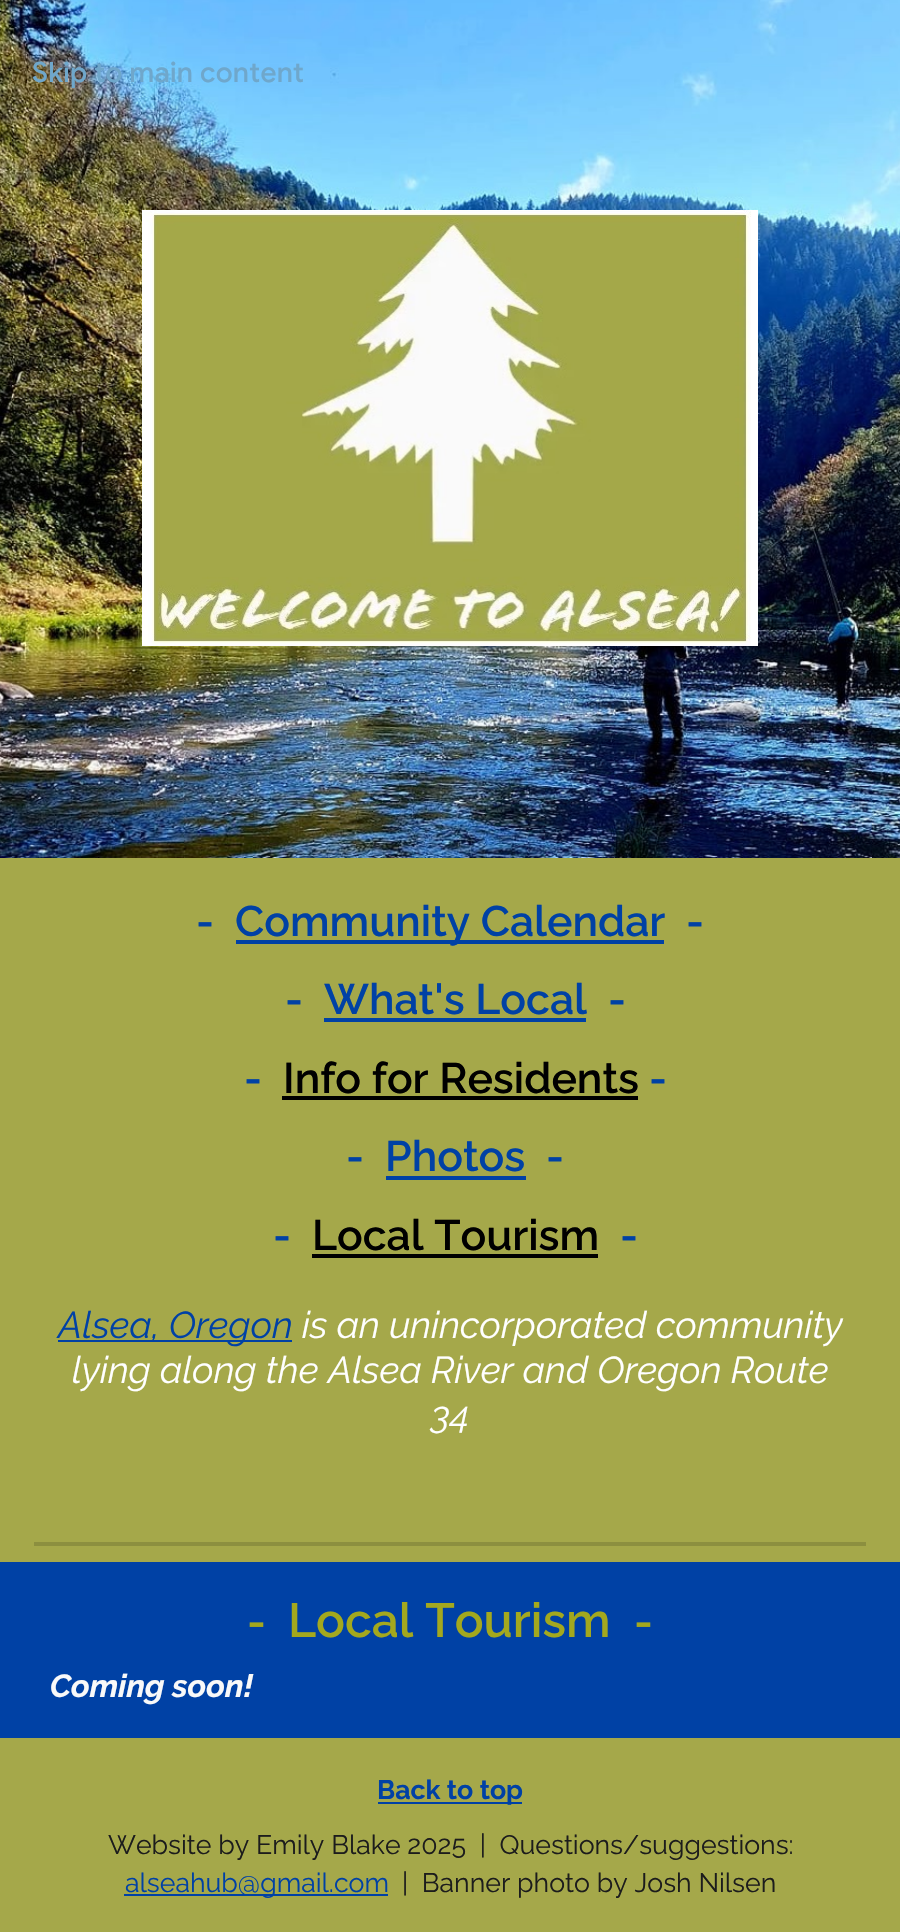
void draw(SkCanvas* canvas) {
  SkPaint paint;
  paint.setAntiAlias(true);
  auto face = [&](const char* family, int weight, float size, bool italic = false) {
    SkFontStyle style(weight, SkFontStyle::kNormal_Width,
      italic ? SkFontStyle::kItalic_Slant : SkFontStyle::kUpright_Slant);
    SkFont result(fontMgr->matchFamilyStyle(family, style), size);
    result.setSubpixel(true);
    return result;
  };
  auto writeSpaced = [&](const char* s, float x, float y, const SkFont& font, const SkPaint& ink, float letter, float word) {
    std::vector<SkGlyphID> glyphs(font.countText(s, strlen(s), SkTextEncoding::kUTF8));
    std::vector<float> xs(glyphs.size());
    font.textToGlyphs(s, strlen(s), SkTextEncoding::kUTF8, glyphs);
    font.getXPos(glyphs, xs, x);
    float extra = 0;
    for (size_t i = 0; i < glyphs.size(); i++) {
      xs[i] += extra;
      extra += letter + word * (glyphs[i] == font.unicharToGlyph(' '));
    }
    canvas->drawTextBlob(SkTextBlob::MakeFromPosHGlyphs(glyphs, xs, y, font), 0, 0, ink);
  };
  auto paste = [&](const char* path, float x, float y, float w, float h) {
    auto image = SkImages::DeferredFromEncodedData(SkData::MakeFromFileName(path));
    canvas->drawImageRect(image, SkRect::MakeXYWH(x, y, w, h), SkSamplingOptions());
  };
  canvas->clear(0xffffffff);
  paste("img/1.png", 0, 0, 900, 858);
  paste("img/2.png", 142, 210, 616, 436);
  {
    const struct { float x, y, w, h; SkColor color; } items[] = {
      {0, 858, 900, 704, 0xffa5a84a},
      {236, 940, 428, 4, 0xff0041a5},
      {324, 1018, 262, 4, 0xff0041a5},
      {282, 1096, 356, 4, 0xff000000},
      {386, 1176, 140, 4, 0xff0041a5},
      {312, 1254, 286, 4, 0xff000000},
      {58, 1340, 234, 2, 0xff0041a5},
      {34, 1542, 832, 4, 0xff8c8f3f},
      {0, 1562, 900, 176, 0xff0041a5},
      {0, 1738, 900, 194, 0xffa5a84a},
      {378, 1802, 144, 2, 0xff0041a5},
      {124, 1894, 264, 2, 0xff0041a5},
    };
    for (auto [x, y, w, h, color] : items) {
      paint.setColor(color);
      canvas->drawRect(SkRect::MakeXYWH(x, y, w, h), paint);
    }
  }
  auto f0 = face("Google Sans", 500, 28);
  paint.setColor(0xff6fa7cb);
  writeSpaced("Skip to main content", 32, 82, f0, paint, 0.25f, 0);
  auto f1 = face("Raleway", 600, 42.75f);
  paint.setColor(0xff0041a5);
  {
    const struct { const char* s; float x, y; } items[] = {
      {"-", 196, 936},
      {"Community Calendar", 235, 936},
      {"-", 686, 936},
      {"-", 285, 1014},
      {"What's Local", 324, 1014},
      {"-", 608, 1014},
      {"-", 244, 1093},
    };
    for (auto [s, x, y] : items) {
      canvas->drawString(s, x, y, f1, paint);
    }
  }
  paint.setColor(0xff000000);
  canvas->drawString("Info for Residents", 283, 1093, f1, paint);
  paint.setColor(0xff0041a5);
  {
    const struct { const char* s; float x, y; } items[] = {
      {"-", 649, 1093},
      {"-", 346, 1171},
      {"Photos", 385, 1171},
      {"-", 546, 1171},
      {"-", 273, 1250},
    };
    for (auto [s, x, y] : items) {
      canvas->drawString(s, x, y, f1, paint);
    }
  }
  paint.setColor(0xff000000);
  canvas->drawString("Local Tourism", 312, 1250, f1, paint);
  paint.setColor(0xff0041a5);
  canvas->drawString("-", 620, 1250, f1, paint);
  auto f2 = face("Raleway", 400, 37.3f, true);
  canvas->drawString("Alsea, Oregon", 58, 1338, f2, paint);
  paint.setColor(0xffffffff);
  {
    const struct { const char* s; float x, y; } items[] = {
      {"is an unincorporated community", 302, 1338},
      {"lying along the Alsea River and Oregon Route", 72, 1383},
      {"34", 431, 1428},
    };
    for (auto [s, x, y] : items) {
      canvas->drawString(s, x, y, f2, paint);
    }
  }
  auto f3 = face("Raleway", 600, 45);
  paint.setColor(0xffa3a81e);
  canvas->drawString("-", 247, 1637, f3, paint);
  auto f4 = face("Raleway", 600, 48);
  canvas->drawString("Local Tourism", 288, 1637, f4, paint);
  canvas->drawString("-", 634, 1637, f3, paint);
  auto f5 = face("Raleway", 700, 32, true);
  paint.setColor(0xfff9f9f9);
  canvas->drawString("Coming soon!", 50, 1697, f5, paint);
  auto f6 = face("Raleway", 700, 26.7f);
  paint.setColor(0xff0041a5);
  canvas->drawString("Back to top", 377, 1799, f6, paint);
  auto f7 = face("Raleway", 400, 26.7f);
  paint.setColor(0xff1c1c1c);
  canvas->drawString("Website by Emily Blake 2025  |  Questions/suggestions:", 108, 1854, f7, paint);
  paint.setColor(0xff0041a5);
  canvas->drawString("alseahub@gmail.com", 125, 1892, f7, paint);
  paint.setColor(0xff1c1c1c);
  canvas->drawString("|  Banner photo by Josh Nilsen", 402, 1892, f7, paint);
}
